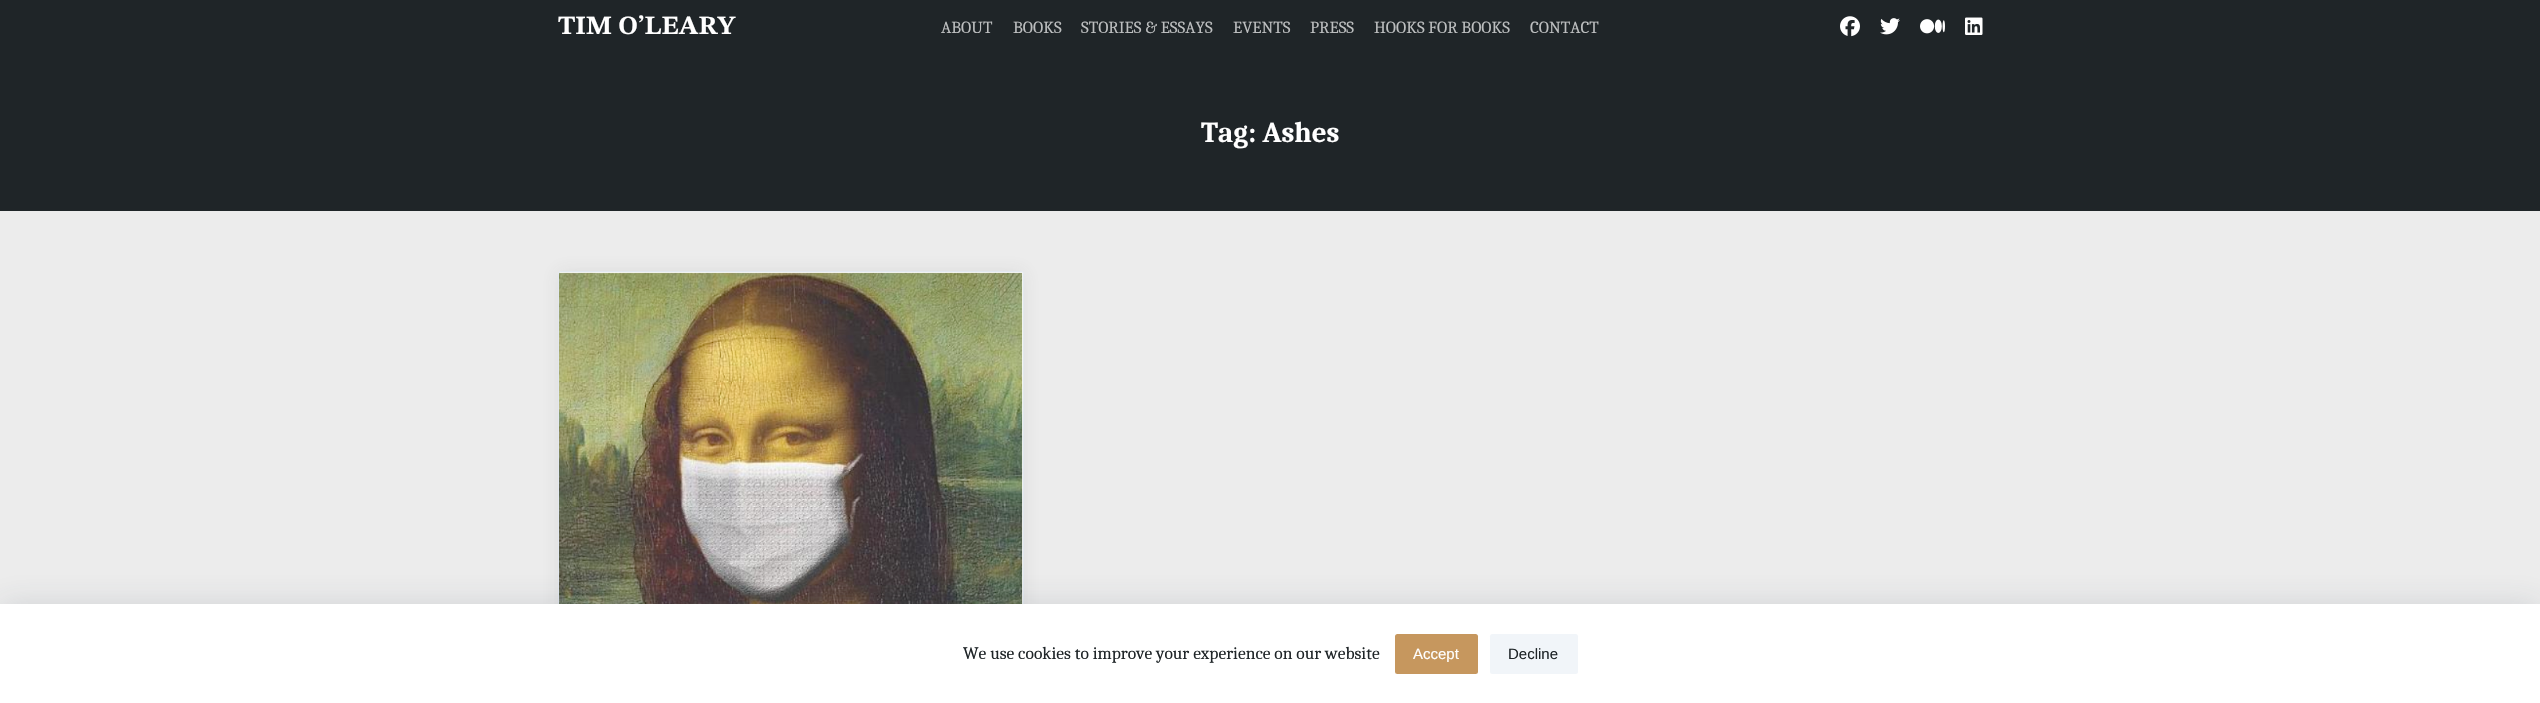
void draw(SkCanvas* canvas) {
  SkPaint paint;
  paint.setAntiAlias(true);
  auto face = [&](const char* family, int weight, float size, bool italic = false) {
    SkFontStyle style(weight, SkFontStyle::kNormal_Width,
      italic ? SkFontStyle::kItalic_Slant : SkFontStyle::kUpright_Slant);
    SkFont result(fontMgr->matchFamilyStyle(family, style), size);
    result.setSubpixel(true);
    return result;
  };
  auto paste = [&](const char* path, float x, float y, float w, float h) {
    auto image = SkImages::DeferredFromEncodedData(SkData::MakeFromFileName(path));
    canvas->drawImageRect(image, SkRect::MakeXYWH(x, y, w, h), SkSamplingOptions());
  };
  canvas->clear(0xffececec);
  paint.setColor(0xff1f2528);
  canvas->drawRect(SkRect::MakeXYWH(0, 0, 2540, 211), paint);
  paste("img/1.png", 1840, 16, 20, 21);
  paste("img/2.png", 1880, 18, 20, 17);
  paste("img/3.png", 1920, 19, 25, 15);
  paste("img/4.png", 1965, 17, 18, 18);
  paint.setColor(0x1a464749);
  paint.setMaskFilter(SkMaskFilter::MakeBlur(kNormal_SkBlurStyle, 9));
  canvas->drawRoundRect(SkRect::MakeXYWH(558, 271, 466, 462), 2.5f, 2.5f, paint);
  paint.setMaskFilter(nullptr);
  paint.setColor(0xffffffff);
  canvas->drawRoundRect(SkRect::MakeXYWH(558.5f, 271.5f, 465, 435), 2, 2, paint);
  paint.setStroke(true);
  paint.setStrokeWidth(1);
  paint.setColor(0xffe2e8f0);
  canvas->drawRoundRect(SkRect::MakeXYWH(558.5f, 271.5f, 465, 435), 2, 2, paint);
  paste("img/5.png", 559, 272, 464, 332);
  paint.setStroke(false);
  paint.setColor(0x262c3e50);
  paint.setMaskFilter(SkMaskFilter::MakeBlur(kNormal_SkBlurStyle, 15));
  canvas->drawRect(SkRect::MakeXYWH(0, 604, 2540, 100), paint);
  paint.setMaskFilter(nullptr);
  paint.setColor(0xffffffff);
  canvas->drawRect(SkRect::MakeXYWH(0, 604, 2540, 99), paint);
  paint.setColor(0xffc6975e);
  canvas->drawRoundRect(SkRect::MakeXYWH(1395, 634, 83, 40), 2.5f, 2.5f, paint);
  paint.setColor(0xfff1f5f9);
  canvas->drawRoundRect(SkRect::MakeXYWH(1490, 634, 88, 40), 2.5f, 2.5f, paint);
  auto f0 = face("STIX Two Text", 700, 26.25f);
  paint.setColor(0xffffffff);
  canvas->drawString("TIM O’LEARY", 558, 34, f0, paint);
  auto f1 = face("Caladea", 400, 17);
  paint.setColor(0xffbcbebf);
  {
    const struct { const char* s; float x, y; } items[] = {
      {"ABOUT", 941, 33},
      {"BOOKS", 1013, 33},
      {"STORIES & ESSAYS", 1081, 33},
      {"EVENTS", 1233, 33},
      {"PRESS", 1310, 33},
      {"HOOKS FOR BOOKS", 1374, 33},
      {"CONTACT", 1530, 33},
    };
    for (auto [s, x, y] : items) {
      canvas->drawString(s, x, y, f1, paint);
    }
  }
  auto f2 = face("Caladea", 700, 29);
  paint.setColor(0xffffffff);
  canvas->drawString("Tag: Ashes", 1201, 142, f2, paint);
  auto f3 = face("Caladea", 400, 17.5f);
  paint.setColor(0xff1f2528);
  canvas->drawString("We use cookies to improve your experience on our website", 963, 659, f3, paint);
  auto f4 = face("Liberation Sans", 400, 15);
  paint.setColor(0xffffffff);
  canvas->drawString("Accept", 1413, 659, f4, paint);
  paint.setColor(0xff1f2528);
  canvas->drawString("Decline", 1508, 659, f4, paint);
}
